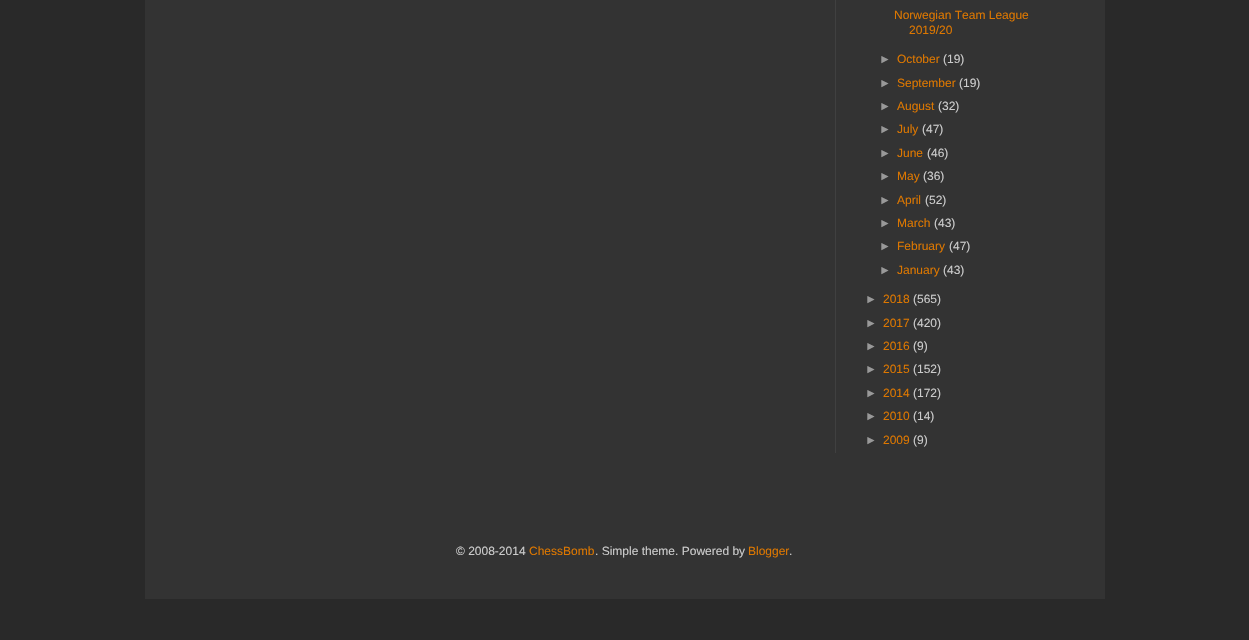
void draw(SkCanvas* canvas) {
  SkPaint paint;
  paint.setAntiAlias(true);
  auto face = [&](const char* family, int weight, float size, bool italic = false) {
    SkFontStyle style(weight, SkFontStyle::kNormal_Width,
      italic ? SkFontStyle::kItalic_Slant : SkFontStyle::kUpright_Slant);
    SkFont result(fontMgr->matchFamilyStyle(family, style), size);
    result.setSubpixel(true);
    return result;
  };
  canvas->clear(0xff292929);
  paint.setColor(0xff333333);
  canvas->drawRect(SkRect::MakeXYWH(145, 0, 960, 599), paint);
  paint.setColor(0xff404040);
  canvas->drawRect(SkRect::MakeXYWH(835, 0, 1, 453), paint);
  auto f0 = face("Liberation Sans", 400, 12);
  paint.setColor(0xffdd7700);
  canvas->drawString("Norwegian Team League", 894, 19, f0, paint);
  canvas->drawString("2019/20", 909, 34, f0, paint);
  paint.setColor(0xff999999);
  canvas->drawString("►", 879, 63, f0, paint);
  paint.setColor(0xffdd7700);
  canvas->drawString("October", 897, 63, f0, paint);
  paint.setColor(0xffcccccc);
  canvas->drawString("(19)", 943, 63, f0, paint);
  paint.setColor(0xff999999);
  canvas->drawString("►", 879, 87, f0, paint);
  paint.setColor(0xffdd7700);
  canvas->drawString("September", 897, 87, f0, paint);
  paint.setColor(0xffcccccc);
  canvas->drawString("(19)", 959, 87, f0, paint);
  paint.setColor(0xff999999);
  canvas->drawString("►", 879, 110, f0, paint);
  paint.setColor(0xffdd7700);
  canvas->drawString("August", 897, 110, f0, paint);
  paint.setColor(0xffcccccc);
  canvas->drawString("(32)", 938, 110, f0, paint);
  paint.setColor(0xff999999);
  canvas->drawString("►", 879, 133, f0, paint);
  paint.setColor(0xffdd7700);
  canvas->drawString("July", 897, 133, f0, paint);
  paint.setColor(0xffcccccc);
  canvas->drawString("(47)", 922, 133, f0, paint);
  paint.setColor(0xff999999);
  canvas->drawString("►", 879, 157, f0, paint);
  paint.setColor(0xffdd7700);
  canvas->drawString("June", 897, 157, f0, paint);
  paint.setColor(0xffcccccc);
  canvas->drawString("(46)", 927, 157, f0, paint);
  paint.setColor(0xff999999);
  canvas->drawString("►", 879, 180, f0, paint);
  paint.setColor(0xffdd7700);
  canvas->drawString("May", 897, 180, f0, paint);
  paint.setColor(0xffcccccc);
  canvas->drawString("(36)", 923, 180, f0, paint);
  paint.setColor(0xff999999);
  canvas->drawString("►", 879, 204, f0, paint);
  paint.setColor(0xffdd7700);
  canvas->drawString("April", 897, 204, f0, paint);
  paint.setColor(0xffcccccc);
  canvas->drawString("(52)", 925, 204, f0, paint);
  paint.setColor(0xff999999);
  canvas->drawString("►", 879, 227, f0, paint);
  paint.setColor(0xffdd7700);
  canvas->drawString("March", 897, 227, f0, paint);
  paint.setColor(0xffcccccc);
  canvas->drawString("(43)", 934, 227, f0, paint);
  paint.setColor(0xff999999);
  canvas->drawString("►", 879, 250, f0, paint);
  paint.setColor(0xffdd7700);
  canvas->drawString("February", 897, 250, f0, paint);
  paint.setColor(0xffcccccc);
  canvas->drawString("(47)", 949, 250, f0, paint);
  paint.setColor(0xff999999);
  canvas->drawString("►", 879, 274, f0, paint);
  paint.setColor(0xffdd7700);
  canvas->drawString("January", 897, 274, f0, paint);
  paint.setColor(0xffcccccc);
  canvas->drawString("(43)", 943, 274, f0, paint);
  paint.setColor(0xff999999);
  canvas->drawString("►", 865, 303, f0, paint);
  paint.setColor(0xffdd7700);
  canvas->drawString("2018", 883, 303, f0, paint);
  paint.setColor(0xffcccccc);
  canvas->drawString("(565)", 913, 303, f0, paint);
  paint.setColor(0xff999999);
  canvas->drawString("►", 865, 327, f0, paint);
  paint.setColor(0xffdd7700);
  canvas->drawString("2017", 883, 327, f0, paint);
  paint.setColor(0xffcccccc);
  canvas->drawString("(420)", 913, 327, f0, paint);
  paint.setColor(0xff999999);
  canvas->drawString("►", 865, 350, f0, paint);
  paint.setColor(0xffdd7700);
  canvas->drawString("2016", 883, 350, f0, paint);
  paint.setColor(0xffcccccc);
  canvas->drawString("(9)", 913, 350, f0, paint);
  paint.setColor(0xff999999);
  canvas->drawString("►", 865, 373, f0, paint);
  paint.setColor(0xffdd7700);
  canvas->drawString("2015", 883, 373, f0, paint);
  paint.setColor(0xffcccccc);
  canvas->drawString("(152)", 913, 373, f0, paint);
  paint.setColor(0xff999999);
  canvas->drawString("►", 865, 397, f0, paint);
  paint.setColor(0xffdd7700);
  canvas->drawString("2014", 883, 397, f0, paint);
  paint.setColor(0xffcccccc);
  canvas->drawString("(172)", 913, 397, f0, paint);
  paint.setColor(0xff999999);
  canvas->drawString("►", 865, 420, f0, paint);
  paint.setColor(0xffdd7700);
  canvas->drawString("2010", 883, 420, f0, paint);
  paint.setColor(0xffcccccc);
  canvas->drawString("(14)", 913, 420, f0, paint);
  paint.setColor(0xff999999);
  canvas->drawString("►", 865, 444, f0, paint);
  paint.setColor(0xffdd7700);
  canvas->drawString("2009", 883, 444, f0, paint);
  paint.setColor(0xffcccccc);
  canvas->drawString("(9)", 913, 444, f0, paint);
  canvas->drawString("© 2008-2014", 456, 555, f0, paint);
  paint.setColor(0xffdd7700);
  canvas->drawString("ChessBomb", 529, 555, f0, paint);
  paint.setColor(0xffcccccc);
  canvas->drawString(". Simple theme. Powered by", 595, 555, f0, paint);
  paint.setColor(0xffdd7700);
  canvas->drawString("Blogger", 748, 555, f0, paint);
  paint.setColor(0xffcccccc);
  canvas->drawString(".", 789, 555, f0, paint);
}
